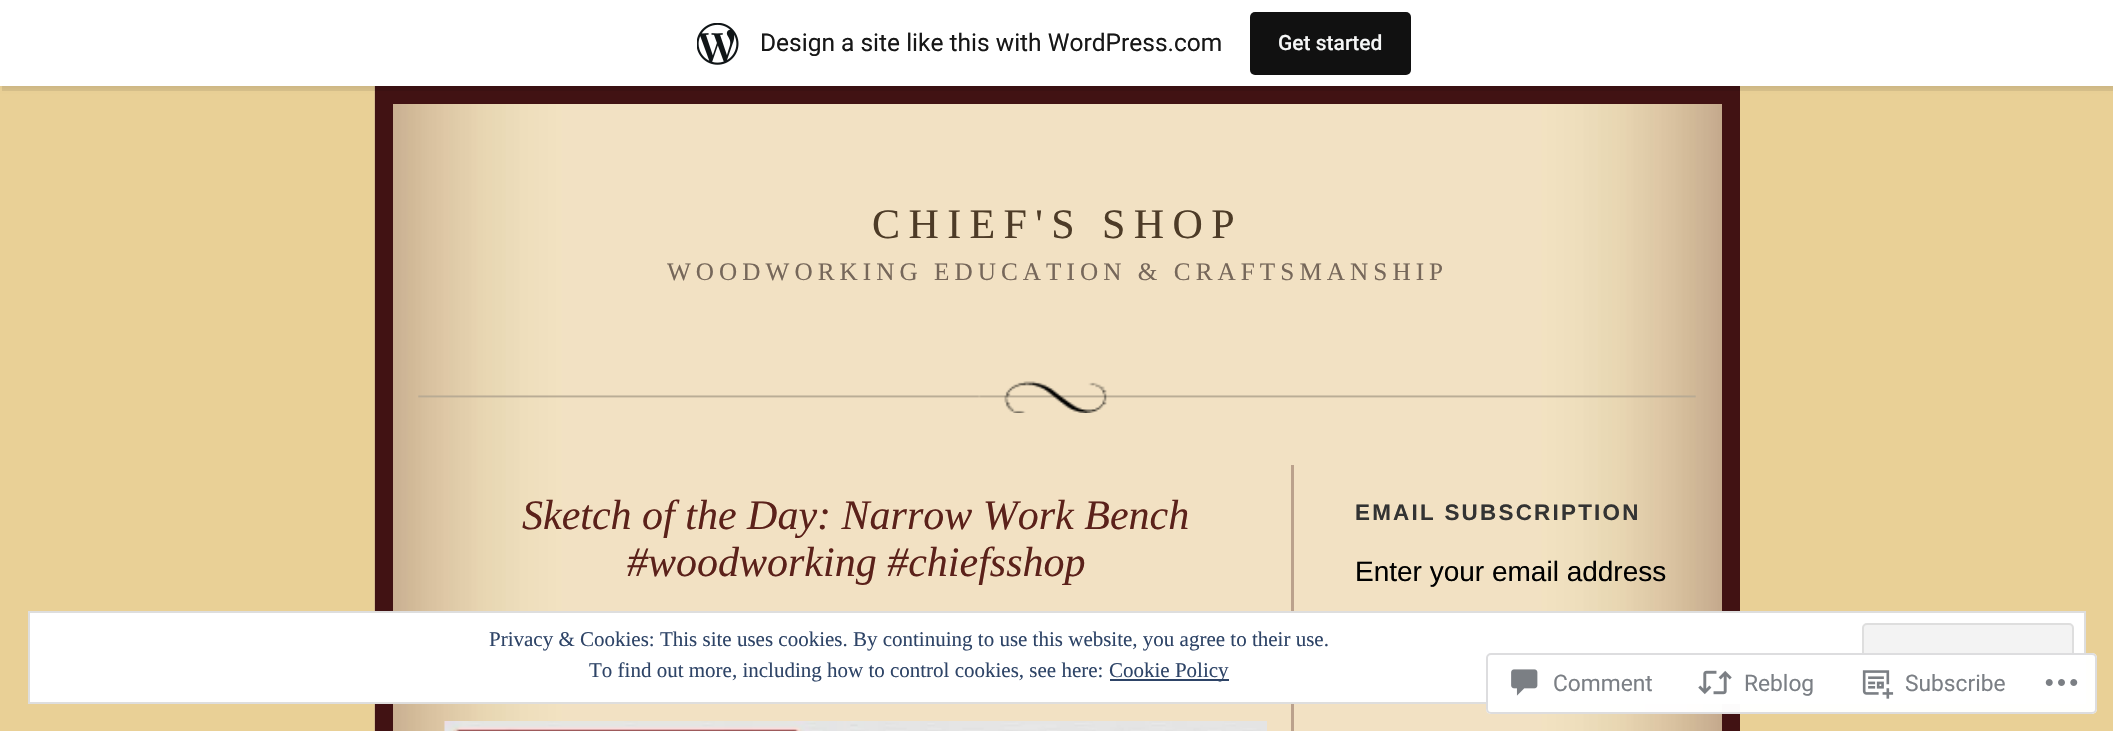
void draw(SkCanvas* canvas) {
  SkPaint paint;
  paint.setAntiAlias(true);
  auto face = [&](const char* family, int weight, float size, bool italic = false) {
    SkFontStyle style(weight, SkFontStyle::kNormal_Width,
      italic ? SkFontStyle::kItalic_Slant : SkFontStyle::kUpright_Slant);
    SkFont result(fontMgr->matchFamilyStyle(family, style), size);
    result.setSubpixel(true);
    return result;
  };
  auto writeSpaced = [&](const char* s, float x, float y, const SkFont& font, const SkPaint& ink, float letter, float word) {
    std::vector<SkGlyphID> glyphs(font.countText(s, strlen(s), SkTextEncoding::kUTF8));
    std::vector<float> xs(glyphs.size());
    font.textToGlyphs(s, strlen(s), SkTextEncoding::kUTF8, glyphs);
    font.getXPos(glyphs, xs, x);
    float extra = 0;
    for (size_t i = 0; i < glyphs.size(); i++) {
      xs[i] += extra;
      extra += letter + word * (glyphs[i] == font.unicharToGlyph(' '));
    }
    canvas->drawTextBlob(SkTextBlob::MakeFromPosHGlyphs(glyphs, xs, y, font), 0, 0, ink);
  };
  auto paste = [&](const char* path, float x, float y, float w, float h) {
    auto image = SkImages::DeferredFromEncodedData(SkData::MakeFromFileName(path));
    canvas->drawImageRect(image, SkRect::MakeXYWH(x, y, w, h), SkSamplingOptions());
  };
  auto shape = [&](const char* data, bool evenOdd = false) {
    SkPath result = *SkParsePath::FromSVGString(data);
    if (evenOdd) result.setFillType(SkPathFillType::kEvenOdd);
    return result;
  };
  canvas->clear(0xffe9d096);
  paste("img/2.png", 374, 86, 1348, 645);
  paint.setStroke(true);
  paint.setStrokeWidth(18);
  paint.setColor(0xff411213);
  canvas->drawRect(SkRect::MakeXYWH(384, 95, 1347, 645), paint);
  paint.setStroke(false);
  paint.setColor(0x0d000000);
  paint.setMaskFilter(SkMaskFilter::MakeBlur(kNormal_SkBlurStyle, 2));
  canvas->drawRect(SkRect::MakeXYWH(0, 2, 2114, 86), paint);
  paint.setMaskFilter(nullptr);
  paint.setColor(0x14000000);
  canvas->drawPath(shape("M2 86V91H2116V5H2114V86Z"), paint);
  paint.setColor(0xffffffff);
  canvas->drawRect(SkRect::MakeXYWH(0, 0, 2113, 86), paint);
  paste("img/1.png", 697, 23, 42, 42);
  paint.setColor(0xff111111);
  canvas->drawRoundRect(SkRect::MakeXYWH(1250, 12, 161, 63), 5, 5, paint);
  paste("img/3.png", 418, 381, 1278, 32);
  paint.setColor(0xffbba18c);
  canvas->drawRect(SkRect::MakeXYWH(1291, 465, 3, 266), paint);
  paste("img/4.png", 444, 721, 823, 10);
  paint.setColor(0xffffffff);
  canvas->drawRect(SkRect::MakeXYWH(29, 612, 2056, 91), paint);
  paint.setStroke(true);
  paint.setStrokeWidth(2);
  paint.setColor(0xffdedede);
  canvas->drawRect(SkRect::MakeXYWH(29, 612, 2056, 91), paint);
  paint.setStroke(false);
  paint.setColor(0xfff3f3f3);
  canvas->drawRoundRect(SkRect::MakeXYWH(1863, 624, 210, 66), 4, 4, paint);
  paint.setStroke(true);
  paint.setColor(0xffdedede);
  canvas->drawRoundRect(SkRect::MakeXYWH(1863, 624, 210, 66), 4, 4, paint);
  paint.setStroke(false);
  paint.setColor(0xff2e4467);
  canvas->drawRect(SkRect::MakeXYWH(1110, 679, 119, 2), paint);
  paint.setColor(0xfaffffff);
  canvas->drawRoundRect(SkRect::MakeXYWH(1486, 653, 611, 61), 5, 5, paint);
  paint.setStroke(true);
  paint.setColor(0xfadcdcde);
  canvas->drawRoundRect(SkRect::MakeXYWH(1487, 654, 609, 59), 4, 4, paint);
  paste("img/5.png", 1511, 669, 27, 27);
  paste("img/6.png", 1698, 670, 34, 25);
  paste("img/7.png", 1862, 670, 32, 29);
  paste("img/8.png", 2045, 679, 33, 7);
  auto f0 = face("Roboto", 400, 24.5f);
  paint.setStroke(false);
  paint.setColor(0xff171717);
  canvas->drawString("Design a site like this with WordPress.com", 760, 51, f0, paint);
  auto f1 = face("Roboto", 500, 21);
  paint.setColor(0xfff6f7f7);
  canvas->drawString("Get started", 1278, 50, f1, paint);
  auto f2 = face("Liberation Serif", 400, 42);
  paint.setColor(0xff4d3b27);
  writeSpaced("CHIEF'S SHOP", 872, 238, f2, paint, 8.4f, 0);
  auto f3 = face("Liberation Serif", 400, 25.2f);
  paint.setColor(0xff76675a);
  writeSpaced("WOODWORKING EDUCATION & CRAFTSMANSHIP", 667, 280, f3, paint, 5.05f, 0);
  auto f4 = face("Liberation Serif", 400, 42, true);
  paint.setColor(0xff5b211a);
  canvas->drawString("Sketch of the Day: Narrow Work Bench", 522, 529, f4, paint);
  canvas->drawString("#woodworking #chiefsshop", 627, 576, f4, paint);
  auto f5 = face("Liberation Sans", 700, 22.4f);
  paint.setColor(0xff333333);
  writeSpaced("EMAIL SUBSCRIPTION", 1355, 520, f5, paint, 2.25f, 0);
  auto f6 = face("Liberation Sans", 400, 28);
  paint.setColor(0xff000000);
  canvas->drawString("Enter your email address", 1355, 581, f6, paint);
  auto f7 = face("Liberation Serif", 400, 21);
  paint.setColor(0xff2e4467);
  {
    const struct { const char* s; float x, y; } items[] = {
      {"Privacy & Cookies: This site uses cookies. By continuing to use this website, you agree to their use.", 489, 646},
      {"To find out more, including how to control cookies, see here:", 589, 677},
      {"Cookie Policy", 1109, 677},
    };
    for (auto [s, x, y] : items) {
      canvas->drawString(s, x, y, f7, paint);
    }
  }
  auto f8 = face("Roboto", 400, 22.75f);
  paint.setColor(0xff7b7f85);
  {
    const struct { const char* s; float x, y; } items[] = {
      {"Comment", 1553, 691},
      {"Reblog", 1744, 691},
      {"Subscribe", 1905, 691},
    };
    for (auto [s, x, y] : items) {
      canvas->drawString(s, x, y, f8, paint);
    }
  }
}
